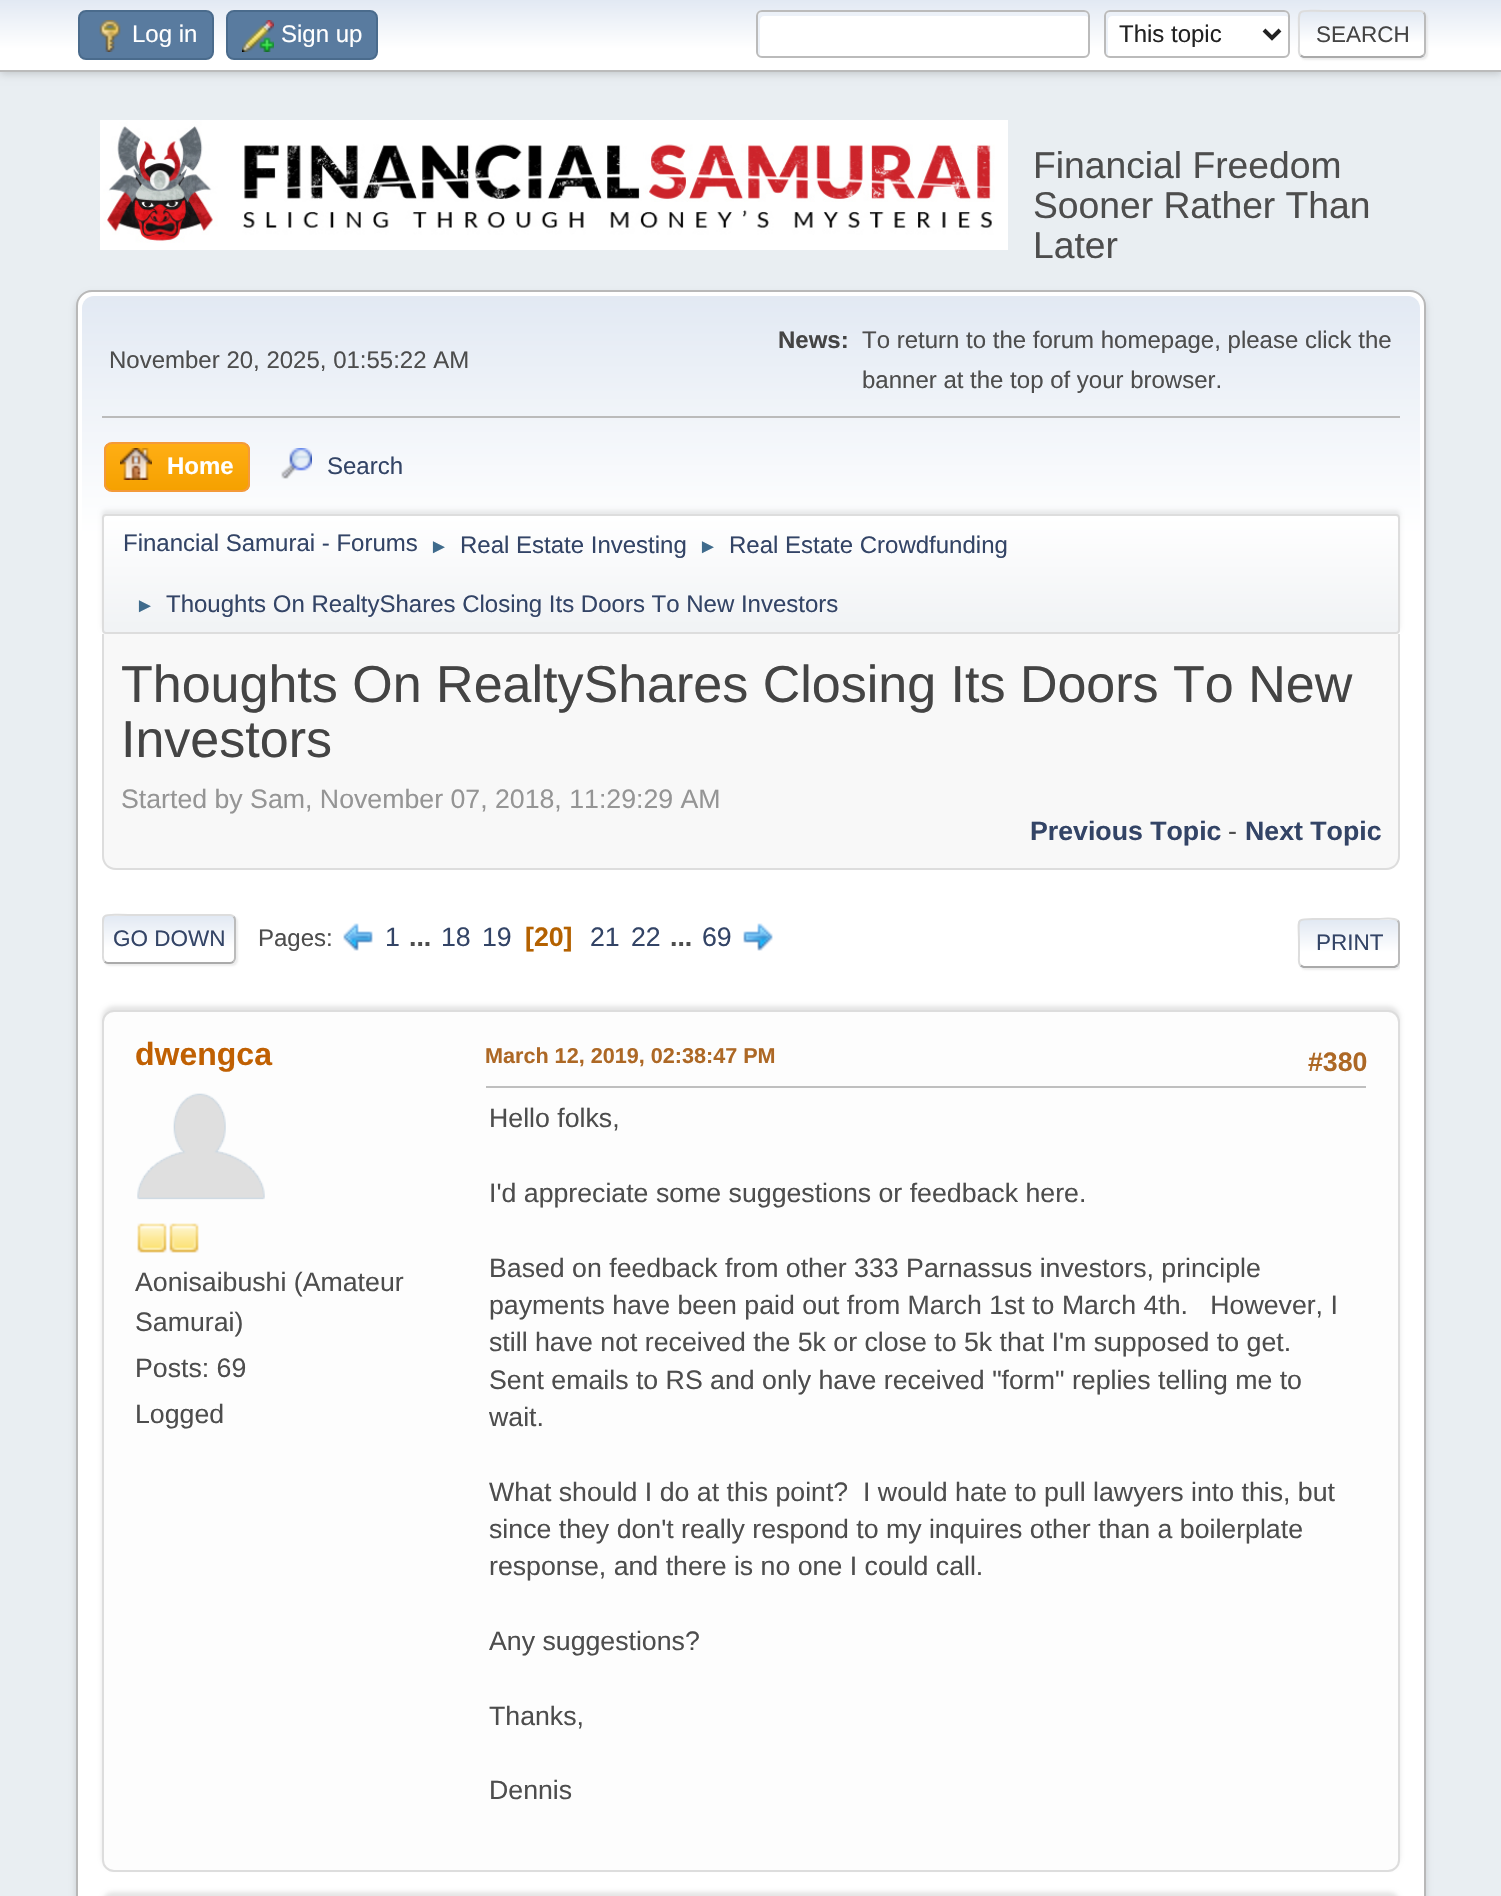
void draw(SkCanvas* canvas) {
  SkPaint paint;
  paint.setAntiAlias(true);
  auto face = [&](const char* family, int weight, float size, bool italic = false) {
    SkFontStyle style(weight, SkFontStyle::kNormal_Width,
      italic ? SkFontStyle::kItalic_Slant : SkFontStyle::kUpright_Slant);
    SkFont result(fontMgr->matchFamilyStyle(family, style), size);
    result.setSubpixel(true);
    return result;
  };
  auto paste = [&](const char* path, float x, float y, float w, float h) {
    auto image = SkImages::DeferredFromEncodedData(SkData::MakeFromFileName(path));
    canvas->drawImageRect(image, SkRect::MakeXYWH(x, y, w, h), SkSamplingOptions());
  };
  auto shape = [&](const char* data, bool evenOdd = false) {
    SkPath result = *SkParsePath::FromSVGString(data);
    if (evenOdd) result.setFillType(SkPathFillType::kEvenOdd);
    return result;
  };
  canvas->clear(0xffe9eef2);
  paint.setColor(0x29000000);
  paint.setMaskFilter(SkMaskFilter::MakeBlur(kNormal_SkBlurStyle, 4));
  canvas->drawRect(SkRect::MakeXYWH(0, 2, 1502, 72), paint);
  paint.setMaskFilter(nullptr);
  {
    const SkColor colors[] = {0xffe2e9f3, 0xffffffff};
    const float stops[] = {0, 0.7f};
    const SkPoint ends[] = {{751, 0}, {751, 70}};
    paint.setShader(SkGradientShader::MakeLinear(ends, colors, stops, 2, SkTileMode::kClamp));
    paint.setAlpha(255);
  }
  canvas->drawRect(SkRect::MakeXYWH(0, 0, 1501, 70), paint);
  paint.setShader(nullptr);
  paint.setColor(0xffbbbbbb);
  canvas->drawRect(SkRect::MakeXYWH(0, 70, 1501, 2), paint);
  paint.setColor(0xff597b9f);
  canvas->drawRoundRect(SkRect::MakeXYWH(79, 11, 134, 48), 7, 7, paint);
  paint.setStroke(true);
  paint.setStrokeWidth(2);
  paint.setColor(0xff4a6b8c);
  canvas->drawRoundRect(SkRect::MakeXYWH(79, 11, 134, 48), 7, 7, paint);
  paste("img/1.png", 99, 20, 22, 32);
  paint.setStroke(false);
  paint.setColor(0xff597b9f);
  canvas->drawRoundRect(SkRect::MakeXYWH(227, 11, 150, 48), 7, 7, paint);
  paint.setStroke(true);
  paint.setColor(0xff4a6b8c);
  canvas->drawRoundRect(SkRect::MakeXYWH(227, 11, 150, 48), 7, 7, paint);
  paste("img/2.png", 242, 20, 32, 32);
  paint.setStroke(false);
  paint.setColor(0xffffffff);
  canvas->drawRoundRect(SkRect::MakeXYWH(756, 10, 334, 48), 6, 6, paint);
  paint.setColor(0xffecf1f8);
  canvas->drawPath(shape("M764 16H1086L1088 17V16C1088 14 1086 12 1084 12H762C760 12 758 14 758 16V52C758 53 759 55 760 55V20C760 18 762 16 764 16Z"), paint);
  paint.setStroke(true);
  paint.setColor(0xffbbbbbb);
  canvas->drawRoundRect(SkRect::MakeXYWH(757, 11, 332, 46), 5, 5, paint);
  paint.setStroke(false);
  paint.setColor(0xffffffff);
  canvas->drawRoundRect(SkRect::MakeXYWH(1104, 10, 186, 48), 6, 6, paint);
  paint.setColor(0xffecf1f8);
  canvas->drawPath(shape("M1112 16H1286L1288 17V16C1288 14 1286 12 1284 12H1110C1108 12 1106 14 1106 16V52C1106 53 1107 55 1108 55V20C1108 18 1110 16 1112 16Z"), paint);
  paint.setStroke(true);
  paint.setColor(0xffbbbbbb);
  canvas->drawRoundRect(SkRect::MakeXYWH(1105, 11, 184, 46), 5, 5, paint);
  paint.setStrokeWidth(4);
  paint.setColor(0xff222222);
  canvas->drawPath(shape("M1264 30L1272 38L1280 30"), paint);
  paint.setStroke(false);
  paint.setColor(0x91dddddd);
  paint.setMaskFilter(SkMaskFilter::MakeBlur(kNormal_SkBlurStyle, 1));
  canvas->drawRoundRect(SkRect::MakeXYWH(1300, 12, 128, 48), 6, 6, paint);
  paint.setMaskFilter(nullptr);
  canvas->save();
  canvas->clipPath(shape("M1304 10H1420C1423.5 10 1426 12.5 1426 16V52C1426 55.5 1423.5 58 1420 58H1304C1300.5 58 1298 55.5 1298 52V16C1298 12.5 1300.5 10 1304 10Z"), true);
  {
    const SkColor colors[] = {0xffe2e9f3, 0xffffffff};
    const float stops[] = {0, 0.7f};
    const SkPoint ends[] = {{1362, 12}, {1362, 56}};
    paint.setShader(SkGradientShader::MakeLinear(ends, colors, stops, 2, SkTileMode::kClamp));
    paint.setAlpha(255);
  }
  canvas->drawRect(SkRect::MakeXYWH(1298, 12, 128, 44), paint);
  {
    const SkColor colors[] = {0xffe2e9f3, 0xffffffff};
    const float stops[] = {0, 0.7f};
    const SkPoint ends[] = {{1362, 56}, {1362, 100}};
    paint.setShader(SkGradientShader::MakeLinear(ends, colors, stops, 2, SkTileMode::kClamp));
    paint.setAlpha(255);
  }
  canvas->drawRect(SkRect::MakeXYWH(1298, 56, 128, 2), paint);
  canvas->restore();
  paint.setStroke(true);
  paint.setStrokeWidth(2);
  paint.setShader(nullptr);
  paint.setColor(0xffbbbbbb);
  canvas->drawPath(shape("M1423.5 12.5C1424.5 13.5 1425 14.5 1425 16V52C1425 53.5 1424.5 54.5 1423.5 55.5"), paint);
  paint.setColor(0xffaaaaaa);
  canvas->drawPath(shape("M1423.5 55.5L1420.5 57H1303.5L1300.5 55.5"), paint);
  paint.setColor(0xffdddddd);
  canvas->drawPath(shape("M1300.5 55.5C1298 53 1299 48.5 1299 46V34C1299 7 1295 11 1323.5 11H1420C1421.5 11 1422.5 11.5 1423.5 12.5"), paint);
  paste("img/3.png", 100, 120, 908, 130);
  paint.setStroke(false);
  paint.setColor(0x24000000);
  paint.setMaskFilter(SkMaskFilter::MakeBlur(kNormal_SkBlurStyle, 3));
  canvas->drawRoundRect(SkRect::MakeXYWH(76, 294, 1350, 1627), 16, 16, paint);
  paint.setMaskFilter(nullptr);
  paint.setColor(0xffffffff);
  canvas->drawRoundRect(SkRect::MakeXYWH(77, 291, 1348, 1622), 15, 15, paint);
  paint.setStroke(true);
  paint.setColor(0xffb8b8b8);
  canvas->drawRoundRect(SkRect::MakeXYWH(77, 291, 1348, 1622), 15, 15, paint);
  paint.setStroke(false);
  {
    const SkColor colors[] = {0xffe2e9f3, 0xffffffff};
    const float stops[] = {0, 0.7f};
    const SkPoint ends[] = {{751, 296}, {751, 638}};
    paint.setShader(SkGradientShader::MakeLinear(ends, colors, stops, 2, SkTileMode::kClamp));
    paint.setAlpha(255);
  }
  canvas->drawPath(shape("M94 296H1408C1414.5 296 1420 301.5 1420 308V638H82V308C82 301.5 87.5 296 94 296Z"), paint);
  paint.setShader(nullptr);
  paint.setColor(0xffbbbbbb);
  canvas->drawRect(SkRect::MakeXYWH(102, 416, 1298, 2), paint);
  canvas->save();
  canvas->clipPath(shape("M112 442H242C246.5 442 250 445.5 250 450V484C250 488.5 246.5 492 242 492H112C107.5 492 104 488.5 104 484V450C104 445.5 107.5 442 112 442Z"), true);
  {
    const SkColor colors[] = {0xffffae14, 0xfff5a100};
    const float stops[] = {0, 1};
    const SkPoint ends[] = {{177, 444}, {177, 490}};
    paint.setShader(SkGradientShader::MakeLinear(ends, colors, stops, 2, SkTileMode::kClamp));
    paint.setAlpha(255);
  }
  canvas->drawRect(SkRect::MakeXYWH(104, 444, 146, 46), paint);
  canvas->restore();
  paint.setStroke(true);
  paint.setShader(nullptr);
  paint.setColor(0xfff49a3a);
  canvas->drawRoundRect(SkRect::MakeXYWH(105, 443, 144, 48), 7, 7, paint);
  paste("img/4.png", 120, 448, 32, 32);
  paste("img/5.png", 281, 448, 31, 31);
  paint.setStroke(false);
  paint.setColor(0x14000000);
  paint.setMaskFilter(SkMaskFilter::MakeBlur(kNormal_SkBlurStyle, 2));
  canvas->drawRoundRect(SkRect::MakeXYWH(102, 510, 1298, 120), 4, 4, paint);
  paint.setMaskFilter(nullptr);
  canvas->save();
  canvas->clipPath(shape("M106 514H1396C1398 514 1400 516 1400 518V630C1400 632 1398 634 1396 634H106C104 634 102 632 102 630V518C102 516 104 514 106 514Z"), true);
  {
    const SkColor colors[] = {0xffffffff, 0xfff1f3f5};
    const float stops[] = {0, 0.95f};
    const SkPoint ends[] = {{751, 516}, {751, 632}};
    paint.setShader(SkGradientShader::MakeLinear(ends, colors, stops, 2, SkTileMode::kClamp));
    paint.setAlpha(255);
  }
  canvas->drawRect(SkRect::MakeXYWH(102, 516, 1298, 116), paint);
  canvas->restore();
  paint.setStroke(true);
  paint.setShader(nullptr);
  paint.setColor(0xffdddddd);
  canvas->drawRoundRect(SkRect::MakeXYWH(103, 515, 1296, 118), 3, 3, paint);
  paint.setStroke(false);
  paint.setColor(0xfff8f8f8);
  canvas->drawPath(shape("M102 634H1400V856C1400 863.5 1393.5 870 1386 870H116C108.5 870 102 863.5 102 856Z"), paint);
  paint.setColor(0xffdddddd);
  canvas->drawPath(shape("M102 634H1400V856C1400 864 1394 870 1386 870H116C108 870 102 864 102 856ZM104 634H1398V856C1398 863 1393 868 1386 868H116C109 868 104 863 104 856Z", true), paint);
  paint.setColor(0x91dddddd);
  paint.setMaskFilter(SkMaskFilter::MakeBlur(kNormal_SkBlurStyle, 1));
  canvas->drawRoundRect(SkRect::MakeXYWH(104, 916, 134, 50), 6, 6, paint);
  paint.setMaskFilter(nullptr);
  canvas->save();
  canvas->clipPath(shape("M108 914H230C233.5 914 236 916.5 236 920V958C236 961.5 233.5 964 230 964H108C104.5 964 102 961.5 102 958V920C102 916.5 104.5 914 108 914Z"), true);
  {
    const SkColor colors[] = {0xffe2e9f3, 0xffffffff};
    const float stops[] = {0, 0.7f};
    const SkPoint ends[] = {{169, 916}, {169, 962}};
    paint.setShader(SkGradientShader::MakeLinear(ends, colors, stops, 2, SkTileMode::kClamp));
    paint.setAlpha(255);
  }
  canvas->drawRect(SkRect::MakeXYWH(102, 916, 134, 46), paint);
  canvas->restore();
  paint.setStroke(true);
  paint.setShader(nullptr);
  paint.setColor(0xffbbbbbb);
  canvas->drawPath(shape("M233.5 916.5C234.5 917.5 235 918.5 235 920V958C235 959.5 234.5 960.5 233.5 961.5"), paint);
  paint.setColor(0xffaaaaaa);
  canvas->drawPath(shape("M233.5 961.5C232.5 962.5 231.5 963 230 963H108C106.5 963 105.5 962.5 104.5 961.5"), paint);
  canvas->save();
  canvas->clipRect(SkRect::MakeXYWH(102, 900, 1298, 86));
  paint.setColor(0xffdddddd);
  canvas->drawPath(shape("M104.5 961.5C102 959 103 954.5 103 951.5V939C103 910.5 98.5 915 128.5 915H230C231.5 915 232.5 915.5 233.5 916.5"), paint);
  canvas->restore();
  paste("img/6.png", 343, 923, 30, 28);
  paste("img/7.png", 743, 923, 30, 28);
  canvas->save();
  canvas->clipRect(SkRect::MakeXYWH(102, 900, 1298, 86));
  paint.setStroke(false);
  paint.setColor(0x91dddddd);
  paint.setMaskFilter(SkMaskFilter::MakeBlur(kNormal_SkBlurStyle, 1));
  canvas->drawRoundRect(SkRect::MakeXYWH(1300, 920, 102, 50), 6, 6, paint);
  paint.setMaskFilter(nullptr);
  canvas->restore();
  paint.setColor(0xffffffff);
  canvas->drawRoundRect(SkRect::MakeXYWH(1298, 918, 102, 50), 6, 6, paint);
  canvas->save();
  canvas->clipPath(shape("M1304 918H1394C1397.5 918 1400 920.5 1400 924V962C1400 965.5 1397.5 968 1394 968H1304C1300.5 968 1298 965.5 1298 962V924C1298 920.5 1300.5 918 1304 918Z"), true);
  {
    const SkColor colors[] = {0xffe2e9f3, 0xffffffff};
    const float stops[] = {0, 0.7f};
    const SkPoint ends[] = {{1349, 920}, {1349, 966}};
    paint.setShader(SkGradientShader::MakeLinear(ends, colors, stops, 2, SkTileMode::kClamp));
    paint.setAlpha(255);
  }
  canvas->drawRect(SkRect::MakeXYWH(1298, 920, 102, 46), paint);
  {
    const SkColor colors[] = {0xffe2e9f3, 0xffffffff};
    const float stops[] = {0, 0.7f};
    const SkPoint ends[] = {{1349, 966}, {1349, 1012}};
    paint.setShader(SkGradientShader::MakeLinear(ends, colors, stops, 2, SkTileMode::kClamp));
    paint.setAlpha(255);
  }
  canvas->drawRect(SkRect::MakeXYWH(1298, 966, 102, 2), paint);
  canvas->restore();
  paint.setStroke(true);
  paint.setShader(nullptr);
  paint.setColor(0xffbbbbbb);
  canvas->drawPath(shape("M1397.5 920.5C1398.5 921.5 1399 922.5 1399 924V962C1399 963.5 1398.5 964.5 1397.5 965.5"), paint);
  paint.setColor(0xffaaaaaa);
  canvas->drawPath(shape("M1397.5 965.5L1394.5 967H1303.5L1300.5 965.5"), paint);
  paint.setColor(0xffdddddd);
  canvas->drawPath(shape("M1300.5 965.5C1298 963 1299 958.5 1299 955.5V943C1299 917 1294 919 1319 919H1379C1380.5 919 1394 917 1397.5 920.5"), paint);
  paint.setStroke(false);
  paint.setColor(0x1a000000);
  paint.setMaskFilter(SkMaskFilter::MakeBlur(kNormal_SkBlurStyle, 2));
  canvas->drawRoundRect(SkRect::MakeXYWH(102, 1006, 1298, 862), 12, 12, paint);
  paint.setMaskFilter(nullptr);
  paint.setColor(0xfffdfdfd);
  canvas->drawRoundRect(SkRect::MakeXYWH(103, 1011, 1296, 860), 11, 11, paint);
  paint.setStroke(true);
  paint.setColor(0xffdddddd);
  canvas->drawRoundRect(SkRect::MakeXYWH(103, 1011, 1296, 860), 11, 11, paint);
  paste("img/8.png", 137, 1093, 128, 107);
  paste("img/9.png", 137, 1223, 30, 30);
  paste("img/9.png", 169, 1223, 30, 30);
  paint.setStroke(false);
  paint.setColor(0xffbfbfbf);
  canvas->drawRect(SkRect::MakeXYWH(486, 1086, 880, 2), paint);
  paint.setColor(0x1a000000);
  paint.setMaskFilter(SkMaskFilter::MakeBlur(kNormal_SkBlurStyle, 2));
  canvas->drawRoundRect(SkRect::MakeXYWH(102, 1892, 1298, 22), 12, 12, paint);
  paint.setMaskFilter(nullptr);
  auto f0 = face("Liberation Sans", 400, 24);
  paint.setColor(0xffffffff);
  canvas->drawString("Log in", 132, 42, f0, paint);
  canvas->drawString("Sign up", 281, 42, f0, paint);
  paint.setColor(0xff222222);
  canvas->drawString("This topic", 1119, 42, f0, paint);
  auto f1 = face("Liberation Sans", 400, 22.5f);
  paint.setColor(0xff444444);
  canvas->drawString("SEARCH", 1316, 42, f1, paint);
  auto f2 = face("Liberation Sans", 400, 37.25f);
  paint.setColor(0xff4d4d4d);
  {
    const struct { const char* s; float x, y; } items[] = {
      {"Financial Freedom", 1033, 178},
      {"Sooner Rather Than", 1033, 218},
      {"Later", 1033, 258},
    };
    for (auto [s, x, y] : items) {
      canvas->drawString(s, x, y, f2, paint);
    }
  }
  canvas->drawString("November 20, 2025, 01:55:22 AM", 109, 368, f0, paint);
  auto f3 = face("Liberation Sans", 700, 24);
  paint.setColor(0xff444444);
  canvas->drawString("News:", 778, 348, f3, paint);
  paint.setColor(0xff4d4d4d);
  canvas->drawString("To return to the forum homepage, please click the", 862, 348, f0, paint);
  canvas->drawString("banner at the top of your browser.", 862, 388, f0, paint);
  paint.setColor(0xffffffff);
  canvas->drawString("Home", 167, 474, f3, paint);
  paint.setColor(0xff334466);
  canvas->drawString("Search", 327, 474, f0, paint);
  canvas->drawString("Financial Samurai - Forums", 123, 551, f0, paint);
  auto f4 = face("Liberation Sans", 400, 20);
  paint.setColor(0xff3f6b8c);
  canvas->drawString("►", 429, 553, f4, paint);
  paint.setColor(0xff334466);
  canvas->drawString("Real Estate Investing", 460, 553, f0, paint);
  paint.setColor(0xff3f6b8c);
  canvas->drawString("►", 698, 553, f4, paint);
  paint.setColor(0xff334466);
  canvas->drawString("Real Estate Crowdfunding", 729, 553, f0, paint);
  paint.setColor(0xff3f6b8c);
  canvas->drawString("►", 135, 612, f4, paint);
  paint.setColor(0xff334466);
  canvas->drawString("Thoughts On RealtyShares Closing Its Doors To New Investors", 166, 612, f0, paint);
  auto f5 = face("Liberation Sans", 400, 52);
  paint.setColor(0xff444444);
  canvas->drawString("Thoughts On RealtyShares Closing Its Doors To New", 121, 702, f5, paint);
  canvas->drawString("Investors", 121, 757, f5, paint);
  auto f6 = face("Liberation Sans", 400, 26.7f);
  paint.setColor(0xff959595);
  canvas->drawString("Started by Sam, November 07, 2018, 11:29:29 AM", 121, 808, f6, paint);
  auto f7 = face("Liberation Sans", 700, 26.7f);
  paint.setColor(0xff334466);
  canvas->drawString("Previous Topic", 1030, 840, f7, paint);
  paint.setColor(0xff4d4d4d);
  canvas->drawString("-", 1228, 840, f6, paint);
  paint.setColor(0xff334466);
  canvas->drawString("Next Topic", 1245, 840, f7, paint);
  canvas->drawString("GO DOWN", 113, 946, f1, paint);
  paint.setColor(0xff4d4d4d);
  canvas->drawString("Pages:", 258, 946, f0, paint);
  paint.setColor(0xff334466);
  canvas->drawString("1", 385, 946, f6, paint);
  paint.setColor(0xff4d4d4d);
  canvas->drawString("...", 409, 946, f7, paint);
  paint.setColor(0xff334466);
  canvas->drawString("18", 441, 946, f6, paint);
  canvas->drawString("19", 482, 946, f6, paint);
  paint.setColor(0xffb46100);
  canvas->drawString("[20]", 525, 946, f7, paint);
  paint.setColor(0xff334466);
  canvas->drawString("21", 590, 946, f6, paint);
  canvas->drawString("22", 631, 946, f6, paint);
  paint.setColor(0xff4d4d4d);
  canvas->drawString("...", 670, 946, f7, paint);
  paint.setColor(0xff334466);
  canvas->drawString("69", 702, 946, f6, paint);
  canvas->drawString("PRINT", 1316, 950, f1, paint);
  auto f8 = face("Liberation Sans", 700, 32);
  paint.setColor(0xffc06002);
  canvas->drawString("dwengca", 135, 1065, f8, paint);
  paint.setColor(0xff4d4d4d);
  {
    const struct { const char* s; float x, y; } items[] = {
      {"Aonisaibushi (Amateur", 135, 1291},
      {"Samurai)", 135, 1331},
      {"Posts: 69", 135, 1377},
      {"Logged", 135, 1423},
    };
    for (auto [s, x, y] : items) {
      canvas->drawString(s, x, y, f6, paint);
    }
  }
  auto f9 = face("Liberation Sans", 700, 21.6f);
  paint.setColor(0xffad6825);
  canvas->drawString("March 12, 2019, 02:38:47 PM", 485, 1063, f9, paint);
  canvas->drawString("#380", 1308, 1071, f7, paint);
  paint.setColor(0xff4d4d4d);
  {
    const struct { const char* s; float x, y; } items[] = {
      {"Hello folks,", 489, 1127},
      {"I'd appreciate some suggestions or feedback here.", 489, 1202},
      {"Based on feedback from other 333 Parnassus investors, principle", 489, 1277},
      {"payments have been paid out from March 1st to March 4th.   However, I", 489, 1314},
      {"still have not received the 5k or close to 5k that I'm supposed to get.", 489, 1351},
      {"Sent emails to RS and only have received \"form\" replies telling me to", 489, 1389},
      {"wait.", 489, 1426},
      {"What should I do at this point?  I would hate to pull lawyers into this, but", 489, 1501},
      {"since they don't really respond to my inquires other than a boilerplate", 489, 1538},
      {"response, and there is no one I could call.", 489, 1575},
      {"Any suggestions?", 489, 1650},
      {"Thanks,", 489, 1725},
      {"Dennis", 489, 1799},
    };
    for (auto [s, x, y] : items) {
      canvas->drawString(s, x, y, f6, paint);
    }
  }
}
